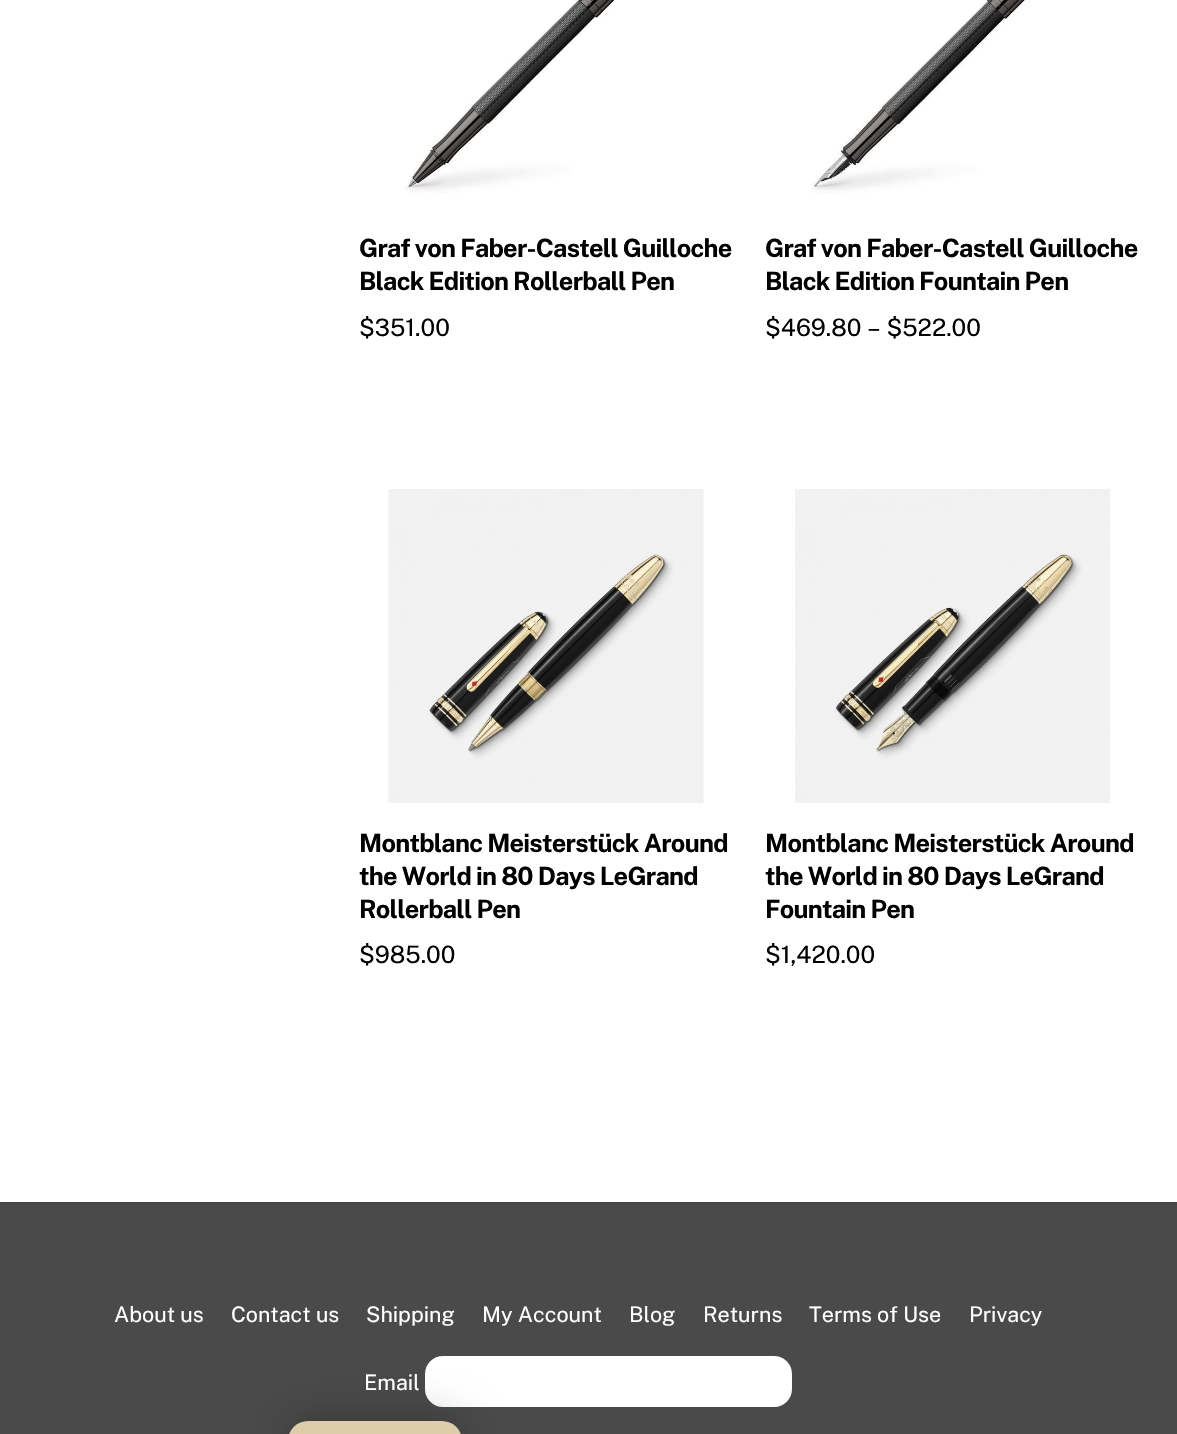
void draw(SkCanvas* canvas) {
  SkPaint paint;
  paint.setAntiAlias(true);
  auto face = [&](const char* family, int weight, float size, bool italic = false) {
    SkFontStyle style(weight, SkFontStyle::kNormal_Width,
      italic ? SkFontStyle::kItalic_Slant : SkFontStyle::kUpright_Slant);
    SkFont result(fontMgr->matchFamilyStyle(family, style), size);
    result.setSubpixel(true);
    return result;
  };
  auto writeSpaced = [&](const char* s, float x, float y, const SkFont& font, const SkPaint& ink, float letter, float word) {
    std::vector<SkGlyphID> glyphs(font.countText(s, strlen(s), SkTextEncoding::kUTF8));
    std::vector<float> xs(glyphs.size());
    font.textToGlyphs(s, strlen(s), SkTextEncoding::kUTF8, glyphs);
    font.getXPos(glyphs, xs, x);
    float extra = 0;
    for (size_t i = 0; i < glyphs.size(); i++) {
      xs[i] += extra;
      extra += letter + word * (glyphs[i] == font.unicharToGlyph(' '));
    }
    canvas->drawTextBlob(SkTextBlob::MakeFromPosHGlyphs(glyphs, xs, y, font), 0, 0, ink);
  };
  auto paste = [&](const char* path, float x, float y, float w, float h) {
    auto image = SkImages::DeferredFromEncodedData(SkData::MakeFromFileName(path));
    canvas->drawImageRect(image, SkRect::MakeXYWH(x, y, w, h), SkSamplingOptions());
  };
  canvas->clear(0xffffffff);
  paste("img/1.png", 405, 0, 210, 193);
  paste("img/2.png", 811, 0, 219, 193);
  paste("img/3.png", 388, 489, 316, 314);
  paste("img/4.png", 795, 489, 315, 314);
  paint.setColor(0xff4a4a4a);
  canvas->drawRect(SkRect::MakeXYWH(0, 1204, 1177, 230), paint);
  paint.setColor(0xff464646);
  canvas->drawRect(SkRect::MakeXYWH(0, 1202, 1177, 2), paint);
  paint.setColor(0xffffffff);
  canvas->drawRoundRect(SkRect::MakeXYWH(425, 1356, 367, 51), 18, 18, paint);
  paint.setColor(0x4d000000);
  paint.setMaskFilter(SkMaskFilter::MakeBlur(kNormal_SkBlurStyle, 22.5f));
  canvas->drawRoundRect(SkRect::MakeXYWH(288, 1421, 174, 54), 27, 27, paint);
  paint.setMaskFilter(nullptr);
  paint.setColor(0xffddcda8);
  canvas->drawRoundRect(SkRect::MakeXYWH(288, 1421, 174, 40), 27, 27, paint);
  auto f0 = face("Public Sans", 700, 25.25f);
  paint.setColor(0xff000000);
  writeSpaced("Graf von Faber-Castell Guilloche", 359, 257, f0, paint, -0.75f, 0);
  writeSpaced("Black Edition Rollerball Pen", 359, 290, f0, paint, -0.75f, 0);
  auto f1 = face("Public Sans", 400, 24);
  canvas->drawString("$351.00", 359, 336, f1, paint);
  writeSpaced("Graf von Faber-Castell Guilloche", 765, 257, f0, paint, -0.75f, 0);
  writeSpaced("Black Edition Fountain Pen", 765, 290, f0, paint, -0.75f, 0);
  canvas->drawString("$469.80 – $522.00", 765, 336, f1, paint);
  {
    const struct { const char* s; float x, y; } items[] = {
      {"Montblanc Meisterstück Around", 359, 852},
      {"the World in 80 Days LeGrand", 359, 885},
      {"Rollerball Pen", 359, 918},
    };
    for (auto [s, x, y] : items) {
      writeSpaced(s, x, y, f0, paint, -0.75f, 0);
    }
  }
  canvas->drawString("$985.00", 359, 963, f1, paint);
  {
    const struct { const char* s; float x, y; } items[] = {
      {"Montblanc Meisterstück Around", 765, 852},
      {"the World in 80 Days LeGrand", 765, 885},
      {"Fountain Pen", 765, 918},
    };
    for (auto [s, x, y] : items) {
      writeSpaced(s, x, y, f0, paint, -0.75f, 0);
    }
  }
  canvas->drawString("$1,420.00", 765, 963, f1, paint);
  auto f2 = face("Public Sans", 400, 21.5f);
  paint.setColor(0xffffffff);
  {
    const struct { const char* s; float x, y; } items[] = {
      {"About us", 114, 1322},
      {"Contact us", 231, 1322},
      {"Shipping", 366, 1322},
      {"My Account", 482, 1322},
      {"Blog", 629, 1322},
      {"Returns", 703, 1322},
      {"Terms of Use", 809, 1322},
      {"Privacy", 969, 1322},
      {"Email", 364, 1390},
    };
    for (auto [s, x, y] : items) {
      canvas->drawString(s, x, y, f2, paint);
    }
  }
}
